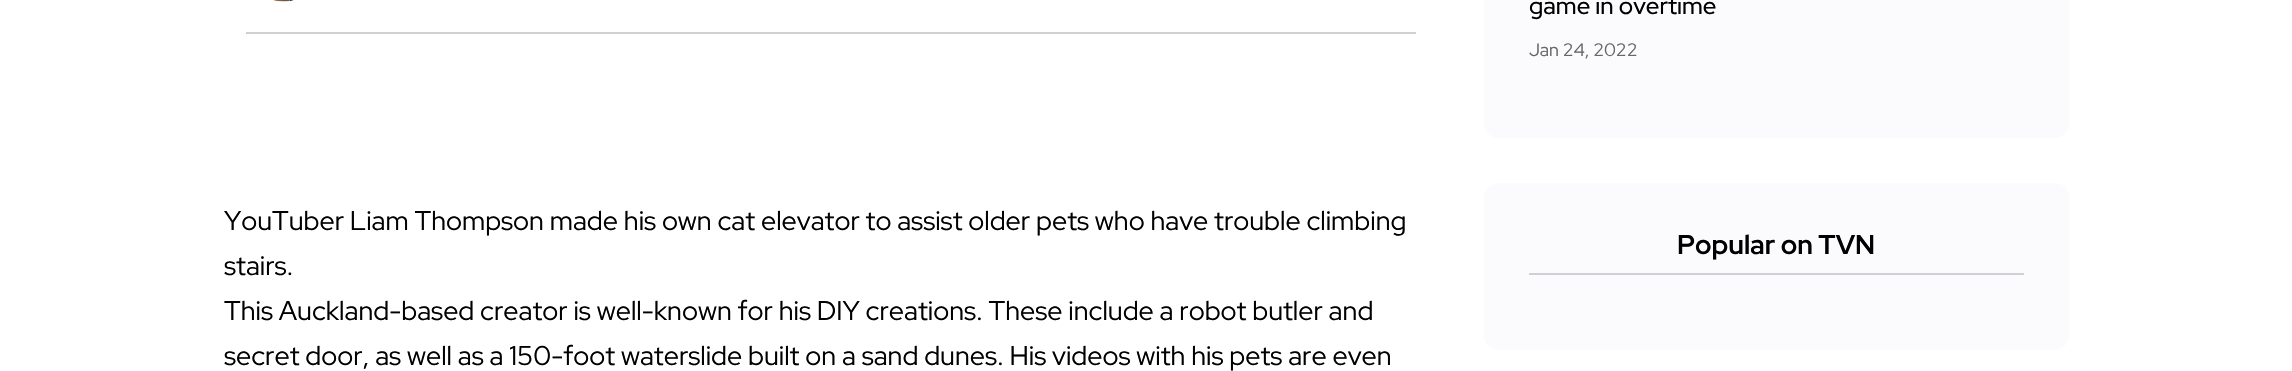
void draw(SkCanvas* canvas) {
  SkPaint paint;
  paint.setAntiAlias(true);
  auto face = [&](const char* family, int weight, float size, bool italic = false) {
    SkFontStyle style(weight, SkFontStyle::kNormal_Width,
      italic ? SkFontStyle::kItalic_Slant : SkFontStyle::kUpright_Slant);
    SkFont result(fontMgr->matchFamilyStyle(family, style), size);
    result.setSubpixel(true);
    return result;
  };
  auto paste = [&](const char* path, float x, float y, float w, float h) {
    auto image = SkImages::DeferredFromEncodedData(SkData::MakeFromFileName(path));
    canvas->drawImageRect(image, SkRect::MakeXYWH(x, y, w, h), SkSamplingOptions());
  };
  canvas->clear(0xffffffff);
  paint.setColor(0xfffbfbfd);
  canvas->drawRoundRect(SkRect::MakeXYWH(1484, -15, 585, 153), 15, 15, paint);
  canvas->drawRoundRect(SkRect::MakeXYWH(1484, 183, 585, 167), 15, 15, paint);
  paint.setColor(0xffced0d4);
  canvas->drawRect(SkRect::MakeXYWH(1529, 273, 495, 2), paint);
  canvas->drawRect(SkRect::MakeXYWH(246, 32, 1170, 2), paint);
  paste("img/1.png", 273, 0, 21, 2);
  auto f0 = face("Red Hat Display", 500, 24);
  paint.setColor(0xff000000);
  canvas->drawString("game in overtime", 1529, 14, f0, paint);
  auto f1 = face("Red Hat Display", 400, 18);
  paint.setColor(0xff666666);
  canvas->drawString("Jan 24, 2022", 1529, 56, f1, paint);
  auto f2 = face("Red Hat Display", 700, 27);
  paint.setColor(0xff000000);
  canvas->drawString("Popular on TVN", 1677, 254, f2, paint);
  auto f3 = face("Red Hat Display", 400, 27);
  {
    const struct { const char* s; float x, y; } items[] = {
      {"YouTuber Liam Thompson made his own cat elevator to assist older pets who have trouble climbing", 224, 230},
      {"stairs.", 224, 275},
      {"This Auckland-based creator is well-known for his DIY creations. These include a robot butler and", 224, 320},
      {"secret door, as well as a 150-foot waterslide built on a sand dunes. His videos with his pets are even", 224, 365},
    };
    for (auto [s, x, y] : items) {
      canvas->drawString(s, x, y, f3, paint);
    }
  }
}
